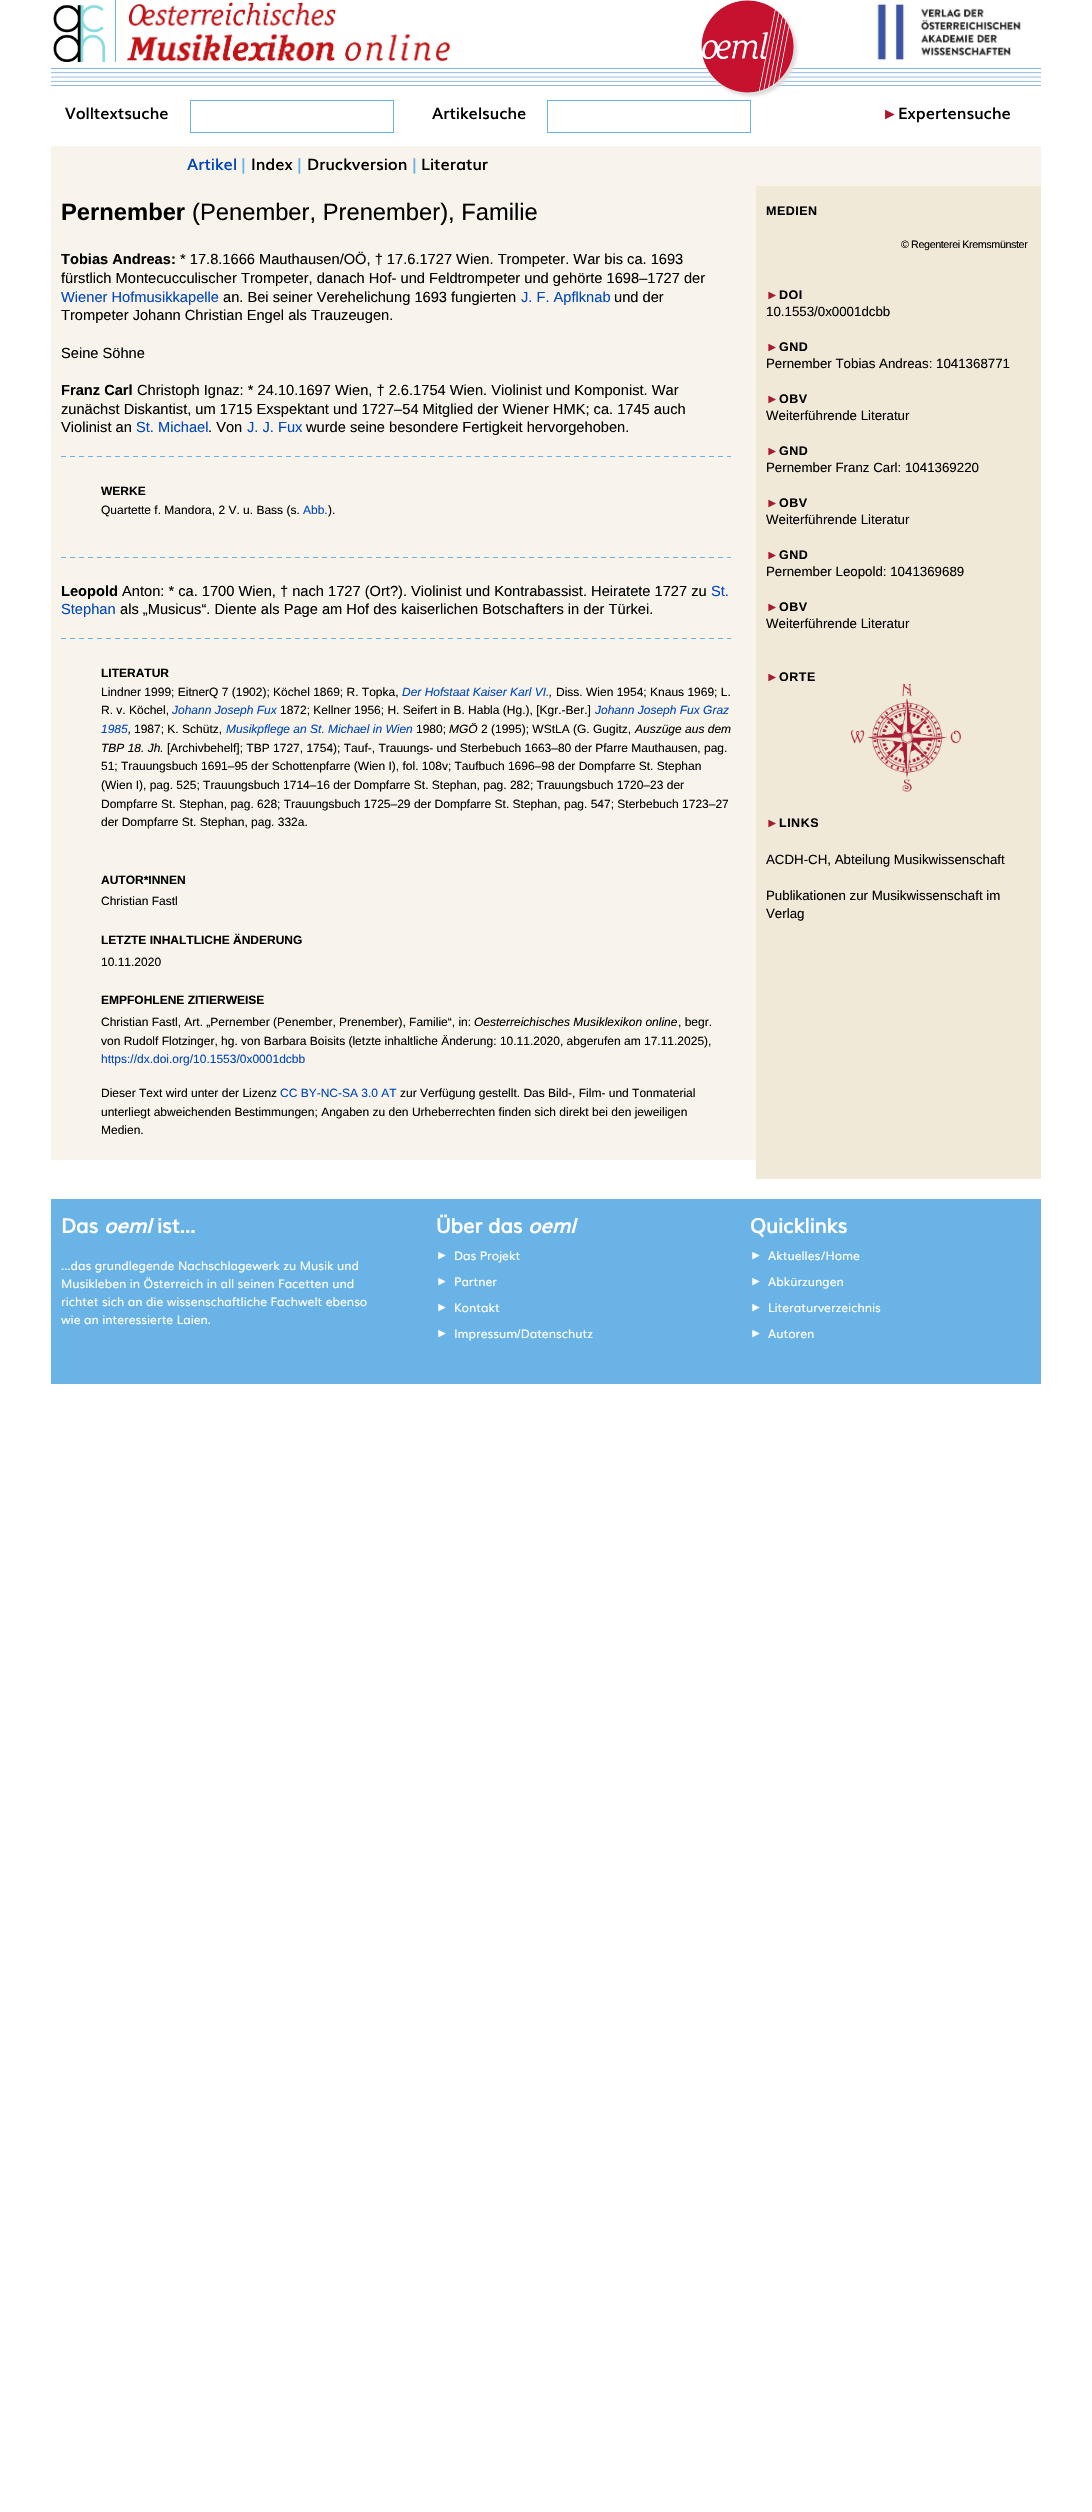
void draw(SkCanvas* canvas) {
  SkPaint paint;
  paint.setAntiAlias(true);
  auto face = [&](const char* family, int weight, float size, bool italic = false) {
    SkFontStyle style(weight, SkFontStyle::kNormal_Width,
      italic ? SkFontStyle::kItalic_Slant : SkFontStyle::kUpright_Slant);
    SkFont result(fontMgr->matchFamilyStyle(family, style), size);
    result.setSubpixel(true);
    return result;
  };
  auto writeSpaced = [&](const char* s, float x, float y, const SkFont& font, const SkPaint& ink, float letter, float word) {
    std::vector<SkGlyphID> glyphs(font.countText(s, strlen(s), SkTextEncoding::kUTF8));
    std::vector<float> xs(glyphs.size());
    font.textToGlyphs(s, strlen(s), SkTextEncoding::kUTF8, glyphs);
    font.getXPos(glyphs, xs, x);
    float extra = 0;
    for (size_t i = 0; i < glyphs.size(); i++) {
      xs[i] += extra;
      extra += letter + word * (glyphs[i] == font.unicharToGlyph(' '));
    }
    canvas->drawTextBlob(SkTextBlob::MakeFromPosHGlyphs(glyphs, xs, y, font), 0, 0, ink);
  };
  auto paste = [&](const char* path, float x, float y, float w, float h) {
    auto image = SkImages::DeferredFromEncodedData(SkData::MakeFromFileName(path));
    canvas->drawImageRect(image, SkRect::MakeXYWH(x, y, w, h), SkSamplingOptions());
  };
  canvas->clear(0xffffffff);
  paste("img/1.png", 53, 4, 52, 58);
  paint.setColor(0xff69b3e7);
  canvas->drawRect(SkRect::MakeXYWH(115, 0, 1, 62), paint);
  paste("img/2.png", 126, 0, 326, 62);
  paste("img/5.png", 51, 68, 990, 18);
  paint.setStroke(true);
  paint.setStrokeWidth(1);
  canvas->drawRect(SkRect::MakeXYWH(547.5f, 100.5f, 203, 32), paint);
  paint.setStroke(false);
  paint.setColor(0xffdddddd);
  paint.setMaskFilter(SkMaskFilter::MakeBlur(kNormal_SkBlurStyle, 1.5f));
  canvas->drawRoundRect(SkRect::MakeXYWH(704, 3, 93, 93), 46.5f, 46.5f, paint);
  paint.setMaskFilter(nullptr);
  paste("img/3.png", 701, 0, 93, 93);
  paste("img/4.png", 872, 0, 149, 61);
  paint.setStroke(true);
  paint.setColor(0xff69b3e7);
  canvas->drawRect(SkRect::MakeXYWH(190.5f, 100.5f, 203, 32), paint);
  paint.setStroke(false);
  paint.setColor(0xfff8f4eb);
  canvas->drawRect(SkRect::MakeXYWH(51, 146, 705, 1014), paint);
  paste("img/6.png", 61, 456, 670, 1);
  paste("img/6.png", 61, 557, 670, 1);
  paste("img/6.png", 61, 638, 670, 1);
  paint.setColor(0xfff0e9d7);
  canvas->drawRect(SkRect::MakeXYWH(756, 186, 285, 993), paint);
  paint.setColor(0xfff8f4eb);
  canvas->drawRect(SkRect::MakeXYWH(756, 146, 285, 40), paint);
  paste("img/7.png", 851, 684, 110, 108);
  paint.setColor(0xff69b3e7);
  canvas->drawRect(SkRect::MakeXYWH(51, 1199, 990, 185), paint);
  auto f0 = face("Muli", 600, 16);
  paint.setColor(0xff000000);
  canvas->drawString("Volltextsuche", 65, 119, f0, paint);
  canvas->drawString("Artikelsuche", 432, 119, f0, paint);
  auto f1 = face("Liberation Sans", 400, 16);
  paint.setColor(0xffa91932);
  canvas->drawString("►", 882, 119, f1, paint);
  paint.setColor(0xff000000);
  canvas->drawString("Expertensuche", 898, 119, f0, paint);
  paint.setColor(0xff0047bb);
  canvas->drawString("Artikel", 187, 170, f0, paint);
  paint.setColor(0xff69b3e7);
  canvas->drawString("|", 241, 170, f0, paint);
  paint.setColor(0xff000000);
  canvas->drawString("Index", 251, 170, f0, paint);
  paint.setColor(0xff69b3e7);
  canvas->drawString("|", 297, 170, f0, paint);
  paint.setColor(0xff000000);
  canvas->drawString("Druckversion", 307, 170, f0, paint);
  paint.setColor(0xff69b3e7);
  canvas->drawString("|", 412, 170, f0, paint);
  paint.setColor(0xff000000);
  canvas->drawString("Literatur", 421, 170, f0, paint);
  auto f2 = face("Liberation Sans", 700, 23.75f);
  canvas->drawString("Pernember", 61, 220, f2, paint);
  auto f3 = face("Liberation Sans", 400, 23.75f);
  canvas->drawString("(Penember, Prenember), Familie", 192, 220, f3, paint);
  auto f4 = face("Liberation Sans", 700, 14.65f);
  canvas->drawString("Tobias Andreas:", 61, 264, f4, paint);
  auto f5 = face("Liberation Sans", 400, 14.65f);
  canvas->drawString("* 17.8.1666 Mauthausen/OÖ, † 17.6.1727 Wien. Trompeter. War bis ca. 1693", 180, 264, f5, paint);
  canvas->drawString("fürstlich Montecucculischer Trompeter, danach Hof- und Feldtrompeter und gehörte 1698–1727 der", 61, 283, f5, paint);
  paint.setColor(0xff0047bb);
  canvas->drawString("Wiener Hofmusikkapelle", 61, 302, f5, paint);
  paint.setColor(0xff000000);
  canvas->drawString("an. Bei seiner Verehelichung 1693 fungierten", 223, 302, f5, paint);
  paint.setColor(0xff0047bb);
  canvas->drawString("J. F. Apflknab", 521, 302, f5, paint);
  paint.setColor(0xff000000);
  {
    const struct { const char* s; float x, y; } items[] = {
      {"und der", 614, 302},
      {"Trompeter Johann Christian Engel als Trauzeugen.", 61, 320},
      {"Seine Söhne", 61, 358},
    };
    for (auto [s, x, y] : items) {
      canvas->drawString(s, x, y, f5, paint);
    }
  }
  canvas->drawString("Franz Carl", 61, 395, f4, paint);
  {
    const struct { const char* s; float x, y; } items[] = {
      {"Christoph Ignaz: * 24.10.1697 Wien, † 2.6.1754 Wien. Violinist und Komponist. War", 137, 395},
      {"zunächst Diskantist, um 1715 Exspektant und 1727–54 Mitglied der Wiener HMK; ca. 1745 auch", 61, 414},
      {"Violinist an", 61, 432},
    };
    for (auto [s, x, y] : items) {
      canvas->drawString(s, x, y, f5, paint);
    }
  }
  paint.setColor(0xff0047bb);
  canvas->drawString("St. Michael", 136, 432, f5, paint);
  paint.setColor(0xff000000);
  canvas->drawString(". Von", 208, 432, f5, paint);
  paint.setColor(0xff0047bb);
  canvas->drawString("J. J. Fux", 247, 432, f5, paint);
  paint.setColor(0xff000000);
  canvas->drawString("wurde seine besondere Fertigkeit hervorgehoben.", 306, 432, f5, paint);
  auto f6 = face("Liberation Sans", 700, 12);
  canvas->drawString("WERKE", 101, 495, f6, paint);
  auto f7 = face("Liberation Sans", 400, 12);
  canvas->drawString("Quartette f. Mandora, 2 V. u. Bass (s.", 101, 514, f7, paint);
  paint.setColor(0xff0047bb);
  canvas->drawString("Abb.", 303, 514, f7, paint);
  paint.setColor(0xff000000);
  canvas->drawString(").", 328, 514, f7, paint);
  canvas->drawString("Leopold", 61, 596, f4, paint);
  canvas->drawString("Anton: * ca. 1700 Wien, † nach 1727 (Ort?). Violinist und Kontrabassist. Heiratete 1727 zu", 122, 596, f5, paint);
  paint.setColor(0xff0047bb);
  canvas->drawString("St.", 711, 596, f5, paint);
  canvas->drawString("Stephan", 61, 614, f5, paint);
  paint.setColor(0xff000000);
  canvas->drawString("als „Musicus“. Diente als Page am Hof des kaiserlichen Botschafters in der Türkei.", 120, 614, f5, paint);
  canvas->drawString("LITERATUR", 101, 677, f6, paint);
  canvas->drawString("Lindner 1999; EitnerQ 7 (1902); Köchel 1869; R. Topka,", 101, 696, f7, paint);
  auto f8 = face("Liberation Sans", 400, 12, true);
  paint.setColor(0xff0047bb);
  canvas->drawString("Der Hofstaat Kaiser Karl VI.", 402, 696, f8, paint);
  paint.setColor(0xff000000);
  canvas->drawString(",", 549, 696, f8, paint);
  canvas->drawString("Diss. Wien 1954; Knaus 1969; L.", 556, 696, f7, paint);
  canvas->drawString("R. v. Köchel,", 101, 714, f7, paint);
  paint.setColor(0xff0047bb);
  canvas->drawString("Johann Joseph Fux", 172, 714, f8, paint);
  paint.setColor(0xff000000);
  canvas->drawString("1872; Kellner 1956; H. Seifert in B. Habla (Hg.), [Kgr.-Ber.]", 280, 714, f7, paint);
  paint.setColor(0xff0047bb);
  canvas->drawString("Johann Joseph Fux Graz", 595, 714, f8, paint);
  canvas->drawString("1985", 101, 733, f8, paint);
  paint.setColor(0xff000000);
  canvas->drawString(",", 128, 733, f8, paint);
  canvas->drawString("1987; K. Schütz,", 134, 733, f7, paint);
  paint.setColor(0xff0047bb);
  canvas->drawString("Musikpflege an St. Michael in Wien", 226, 733, f8, paint);
  paint.setColor(0xff000000);
  canvas->drawString("1980;", 416, 733, f7, paint);
  canvas->drawString("MGÖ", 449, 733, f8, paint);
  canvas->drawString("2 (1995); WStLA (G. Gugitz,", 481, 733, f7, paint);
  canvas->drawString("Auszüge aus dem", 635, 733, f8, paint);
  canvas->drawString("TBP 18. Jh.", 101, 752, f8, paint);
  {
    const struct { const char* s; float x, y; } items[] = {
      {"[Archivbehelf]; TBP 1727, 1754); Tauf-, Trauungs- und Sterbebuch 1663–80 der Pfarre Mauthausen, pag.", 167, 752},
      {"51; Trauungsbuch 1691–95 der Schottenpfarre (Wien I), fol. 108v; Taufbuch 1696–98 der Dompfarre St. Stephan", 101, 770},
      {"(Wien I), pag. 525; Trauungsbuch 1714–16 der Dompfarre St. Stephan, pag. 282; Trauungsbuch 1720–23 der", 101, 789},
      {"Dompfarre St. Stephan, pag. 628; Trauungsbuch 1725–29 der Dompfarre St. Stephan, pag. 547; Sterbebuch 1723–27", 101, 808},
      {"der Dompfarre St. Stephan, pag. 332a.", 101, 826},
    };
    for (auto [s, x, y] : items) {
      canvas->drawString(s, x, y, f7, paint);
    }
  }
  canvas->drawString("AUTOR*INNEN", 101, 884, f6, paint);
  canvas->drawString("Christian Fastl", 101, 905, f7, paint);
  canvas->drawString("LETZTE INHALTLICHE ÄNDERUNG", 101, 944, f6, paint);
  canvas->drawString("10.11.2020", 101, 966, f7, paint);
  canvas->drawString("EMPFOHLENE ZITIERWEISE", 101, 1004, f6, paint);
  canvas->drawString("Christian Fastl, Art. „Pernember (Penember, Prenember), Familie“, in:", 101, 1026, f7, paint);
  canvas->drawString("Oesterreichisches Musiklexikon online", 474, 1026, f8, paint);
  canvas->drawString(", begr.", 678, 1026, f7, paint);
  canvas->drawString("von Rudolf Flotzinger, hg. von Barbara Boisits (letzte inhaltliche Änderung: 10.11.2020, abgerufen am 17.11.2025),", 101, 1045, f7, paint);
  paint.setColor(0xff0047bb);
  canvas->drawString("https://dx.doi.org/10.1553/0x0001dcbb", 101, 1063, f7, paint);
  paint.setColor(0xff000000);
  canvas->drawString("Dieser Text wird unter der Lizenz", 101, 1097, f7, paint);
  paint.setColor(0xff0047bb);
  canvas->drawString("CC BY-NC-SA 3.0 AT", 280, 1097, f7, paint);
  paint.setColor(0xff000000);
  {
    const struct { const char* s; float x, y; } items[] = {
      {"zur Verfügung gestellt. Das Bild-, Film- und Tonmaterial", 400, 1097},
      {"unterliegt abweichenden Bestimmungen; Angaben zu den Urheberrechten finden sich direkt bei den jeweiligen", 101, 1116},
      {"Medien.", 101, 1134},
    };
    for (auto [s, x, y] : items) {
      canvas->drawString(s, x, y, f7, paint);
    }
  }
  auto f9 = face("Liberation Sans", 700, 12.5f);
  writeSpaced("MEDIEN", 766, 215, f9, paint, 0.5f, 0);
  auto f10 = face("Liberation Sans", 400, 10.75f);
  writeSpaced("© Regenterei Kremsmünster", 901, 248, f10, paint, -0.4f, 0);
  paint.setColor(0xffa91932);
  writeSpaced("►", 766, 299, f9, paint, 0.5f, 0);
  paint.setColor(0xff000000);
  writeSpaced("DOI", 779, 299, f9, paint, 0.5f, 0);
  auto f11 = face("Liberation Sans", 400, 13.3f);
  canvas->drawString("10.1553/0x0001dcbb", 766, 316, f11, paint);
  paint.setColor(0xffa91932);
  writeSpaced("►", 766, 351, f9, paint, 0.5f, 0);
  paint.setColor(0xff000000);
  writeSpaced("GND", 779, 351, f9, paint, 0.5f, 0);
  canvas->drawString("Pernember Tobias Andreas: 1041368771", 766, 368, f11, paint);
  paint.setColor(0xffa91932);
  writeSpaced("►", 766, 403, f9, paint, 0.5f, 0);
  paint.setColor(0xff000000);
  writeSpaced("OBV", 779, 403, f9, paint, 0.5f, 0);
  canvas->drawString("Weiterführende Literatur", 766, 420, f11, paint);
  paint.setColor(0xffa91932);
  writeSpaced("►", 766, 455, f9, paint, 0.5f, 0);
  paint.setColor(0xff000000);
  writeSpaced("GND", 779, 455, f9, paint, 0.5f, 0);
  canvas->drawString("Pernember Franz Carl: 1041369220", 766, 472, f11, paint);
  paint.setColor(0xffa91932);
  writeSpaced("►", 766, 507, f9, paint, 0.5f, 0);
  paint.setColor(0xff000000);
  writeSpaced("OBV", 779, 507, f9, paint, 0.5f, 0);
  canvas->drawString("Weiterführende Literatur", 766, 524, f11, paint);
  paint.setColor(0xffa91932);
  writeSpaced("►", 766, 559, f9, paint, 0.5f, 0);
  paint.setColor(0xff000000);
  writeSpaced("GND", 779, 559, f9, paint, 0.5f, 0);
  canvas->drawString("Pernember Leopold: 1041369689", 766, 576, f11, paint);
  paint.setColor(0xffa91932);
  writeSpaced("►", 766, 611, f9, paint, 0.5f, 0);
  paint.setColor(0xff000000);
  writeSpaced("OBV", 779, 611, f9, paint, 0.5f, 0);
  canvas->drawString("Weiterführende Literatur", 766, 628, f11, paint);
  paint.setColor(0xffa91932);
  writeSpaced("►", 766, 681, f9, paint, 0.5f, 0);
  paint.setColor(0xff000000);
  writeSpaced("ORTE", 779, 681, f9, paint, 0.5f, 0);
  paint.setColor(0xffa91932);
  writeSpaced("►", 766, 827, f9, paint, 0.5f, 0);
  paint.setColor(0xff000000);
  writeSpaced("LINKS", 779, 827, f9, paint, 0.5f, 0);
  {
    const struct { const char* s; float x, y; } items[] = {
      {"ACDH-CH, Abteilung Musikwissenschaft", 766, 864},
      {"Publikationen zur Musikwissenschaft im", 766, 900},
      {"Verlag", 766, 918},
    };
    for (auto [s, x, y] : items) {
      canvas->drawString(s, x, y, f11, paint);
    }
  }
  auto f12 = face("Muli", 700, 20);
  paint.setColor(0xffffffff);
  canvas->drawString("Das", 61, 1233, f12, paint);
  auto f13 = face("Muli", 700, 20, true);
  canvas->drawString("oeml", 104, 1233, f13, paint);
  canvas->drawString("ist...", 157, 1233, f12, paint);
  auto f14 = face("Muli", 400, 12);
  {
    const struct { const char* s; float x, y; } items[] = {
      {"...das grundlegende Nachschlagewerk zu Musik und", 61, 1270},
      {"Musikleben in Österreich in all seinen Facetten und", 61, 1288},
      {"richtet sich an die wissenschaftliche Fachwelt ebenso", 61, 1306},
      {"wie an interessierte Laien.", 61, 1324},
    };
    for (auto [s, x, y] : items) {
      canvas->drawString(s, x, y, f14, paint);
    }
  }
  canvas->drawString("Über das", 436, 1233, f12, paint);
  canvas->drawString("oeml", 528, 1233, f13, paint);
  canvas->drawString("►", 436, 1259, f7, paint);
  canvas->drawString("Das Projekt", 454, 1260, f14, paint);
  canvas->drawString("►", 436, 1285, f7, paint);
  canvas->drawString("Partner", 454, 1286, f14, paint);
  canvas->drawString("►", 436, 1311, f7, paint);
  canvas->drawString("Kontakt", 454, 1312, f14, paint);
  canvas->drawString("Impressum Datenschutz", 454, 1338, f14, paint);
  canvas->drawString("►", 436, 1337, f7, paint);
  canvas->drawString("/", 517, 1338, f7, paint);
  canvas->drawString("Quicklinks", 750, 1233, f12, paint);
  canvas->drawString("►", 750, 1259, f7, paint);
  canvas->drawString("Aktuelles/Home", 768, 1260, f14, paint);
  canvas->drawString("►", 750, 1285, f7, paint);
  canvas->drawString("Abkürzungen", 768, 1286, f14, paint);
  canvas->drawString("►", 750, 1311, f7, paint);
  canvas->drawString("Literaturverzeichnis", 768, 1312, f14, paint);
  canvas->drawString("►", 750, 1337, f7, paint);
  canvas->drawString("Autoren", 768, 1338, f14, paint);
}
